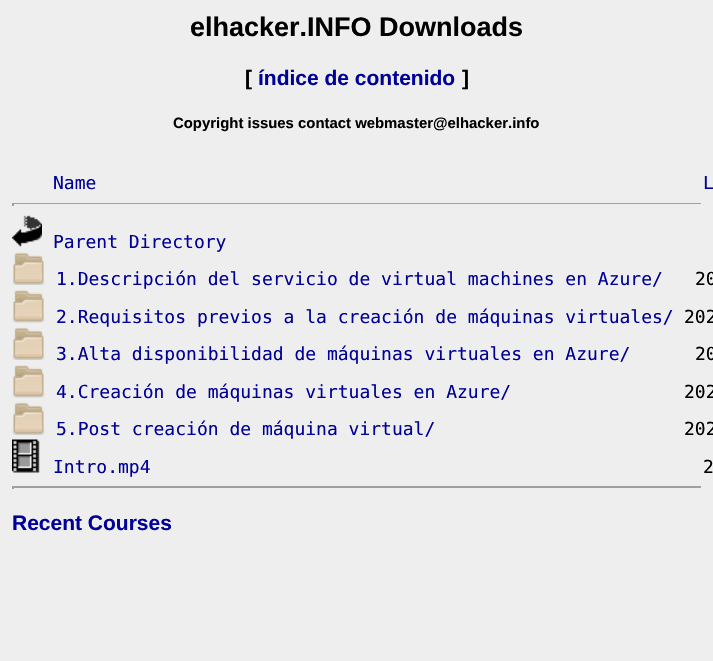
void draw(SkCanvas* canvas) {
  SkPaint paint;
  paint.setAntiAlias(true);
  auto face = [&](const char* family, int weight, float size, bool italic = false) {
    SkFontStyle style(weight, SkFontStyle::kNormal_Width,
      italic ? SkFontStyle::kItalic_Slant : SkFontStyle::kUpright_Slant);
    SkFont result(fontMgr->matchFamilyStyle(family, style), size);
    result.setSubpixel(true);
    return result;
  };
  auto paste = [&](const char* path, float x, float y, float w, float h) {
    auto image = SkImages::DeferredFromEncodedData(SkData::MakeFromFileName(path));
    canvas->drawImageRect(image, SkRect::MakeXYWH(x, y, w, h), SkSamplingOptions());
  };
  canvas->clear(0xffeeeeee);
  {
    const struct { float x, y, w, h; SkColor color; } items[] = {
      {12, 203, 690, 1, 0xff9f9f9f},
      {701, 203, 1, 3, 0xffeeeeee},
      {12, 203, 2, 3, 0xff9f9f9f},
    };
    for (auto [x, y, w, h, color] : items) {
      paint.setColor(color);
      canvas->drawRect(SkRect::MakeXYWH(x, y, w, h), paint);
    }
  }
  paste("img/1.png", 12, 215, 30, 32);
  paste("img/2.png", 12, 252, 33, 33);
  paste("img/3.png", 12, 290, 33, 33);
  paste("img/2.png", 12, 327, 33, 33);
  paste("img/3.png", 12, 365, 33, 33);
  paste("img/2.png", 12, 402, 33, 33);
  paste("img/4.png", 12, 439, 28, 34);
  {
    const struct { float x, y, w, h; SkColor color; } items[] = {
      {12, 486, 690, 2, 0xff9f9f9f},
      {701, 486, 1, 3, 0xffeeeeee},
      {12, 486, 2, 3, 0xff9f9f9f},
    };
    for (auto [x, y, w, h, color] : items) {
      paint.setColor(color);
      canvas->drawRect(SkRect::MakeXYWH(x, y, w, h), paint);
    }
  }
  auto f0 = face("Liberation Sans", 700, 27);
  paint.setColor(0xff000000);
  canvas->drawString("elhacker.INFO Downloads", 190, 36, f0, paint);
  auto f1 = face("Liberation Sans", 700, 21);
  canvas->drawString("[", 245, 85, f1, paint);
  paint.setColor(0xff000099);
  canvas->drawString("índice de contenido", 258, 85, f1, paint);
  paint.setColor(0xff000000);
  canvas->drawString("]", 462, 85, f1, paint);
  auto f2 = face("Liberation Sans", 700, 14.9f);
  canvas->drawString("Copyright issues contact webmaster@elhacker.info", 173, 128, f2, paint);
  auto f3 = face("DejaVu Sans Mono", 400, 18);
  paint.setColor(0xff000099);
  {
    const struct { const char* s; float x, y; } items[] = {
      {"Name", 53, 189},
      {"L", 703, 189},
      {"Parent Directory", 53, 248},
      {"1.Descripción del servicio de virtual machines en Azure/", 56, 285},
    };
    for (auto [s, x, y] : items) {
      canvas->drawString(s, x, y, f3, paint);
    }
  }
  paint.setColor(0xff000000);
  canvas->drawString("20", 695, 285, f3, paint);
  paint.setColor(0xff000099);
  canvas->drawString("2.Requisitos previos a la creación de máquinas virtuales/", 56, 323, f3, paint);
  paint.setColor(0xff000000);
  canvas->drawString("202", 684, 323, f3, paint);
  paint.setColor(0xff000099);
  canvas->drawString("3.Alta disponibilidad de máquinas virtuales en Azure/", 56, 360, f3, paint);
  paint.setColor(0xff000000);
  canvas->drawString("20", 695, 360, f3, paint);
  paint.setColor(0xff000099);
  canvas->drawString("4.Creación de máquinas virtuales en Azure/", 56, 398, f3, paint);
  paint.setColor(0xff000000);
  canvas->drawString("202", 684, 398, f3, paint);
  paint.setColor(0xff000099);
  canvas->drawString("5.Post creación de máquina virtual/", 56, 435, f3, paint);
  paint.setColor(0xff000000);
  canvas->drawString("202", 684, 435, f3, paint);
  paint.setColor(0xff000099);
  canvas->drawString("Intro.mp4", 53, 473, f3, paint);
  paint.setColor(0xff000000);
  canvas->drawString("2", 703, 473, f3, paint);
  paint.setColor(0xff000099);
  canvas->drawString("Recent Courses", 12, 530, f1, paint);
}
